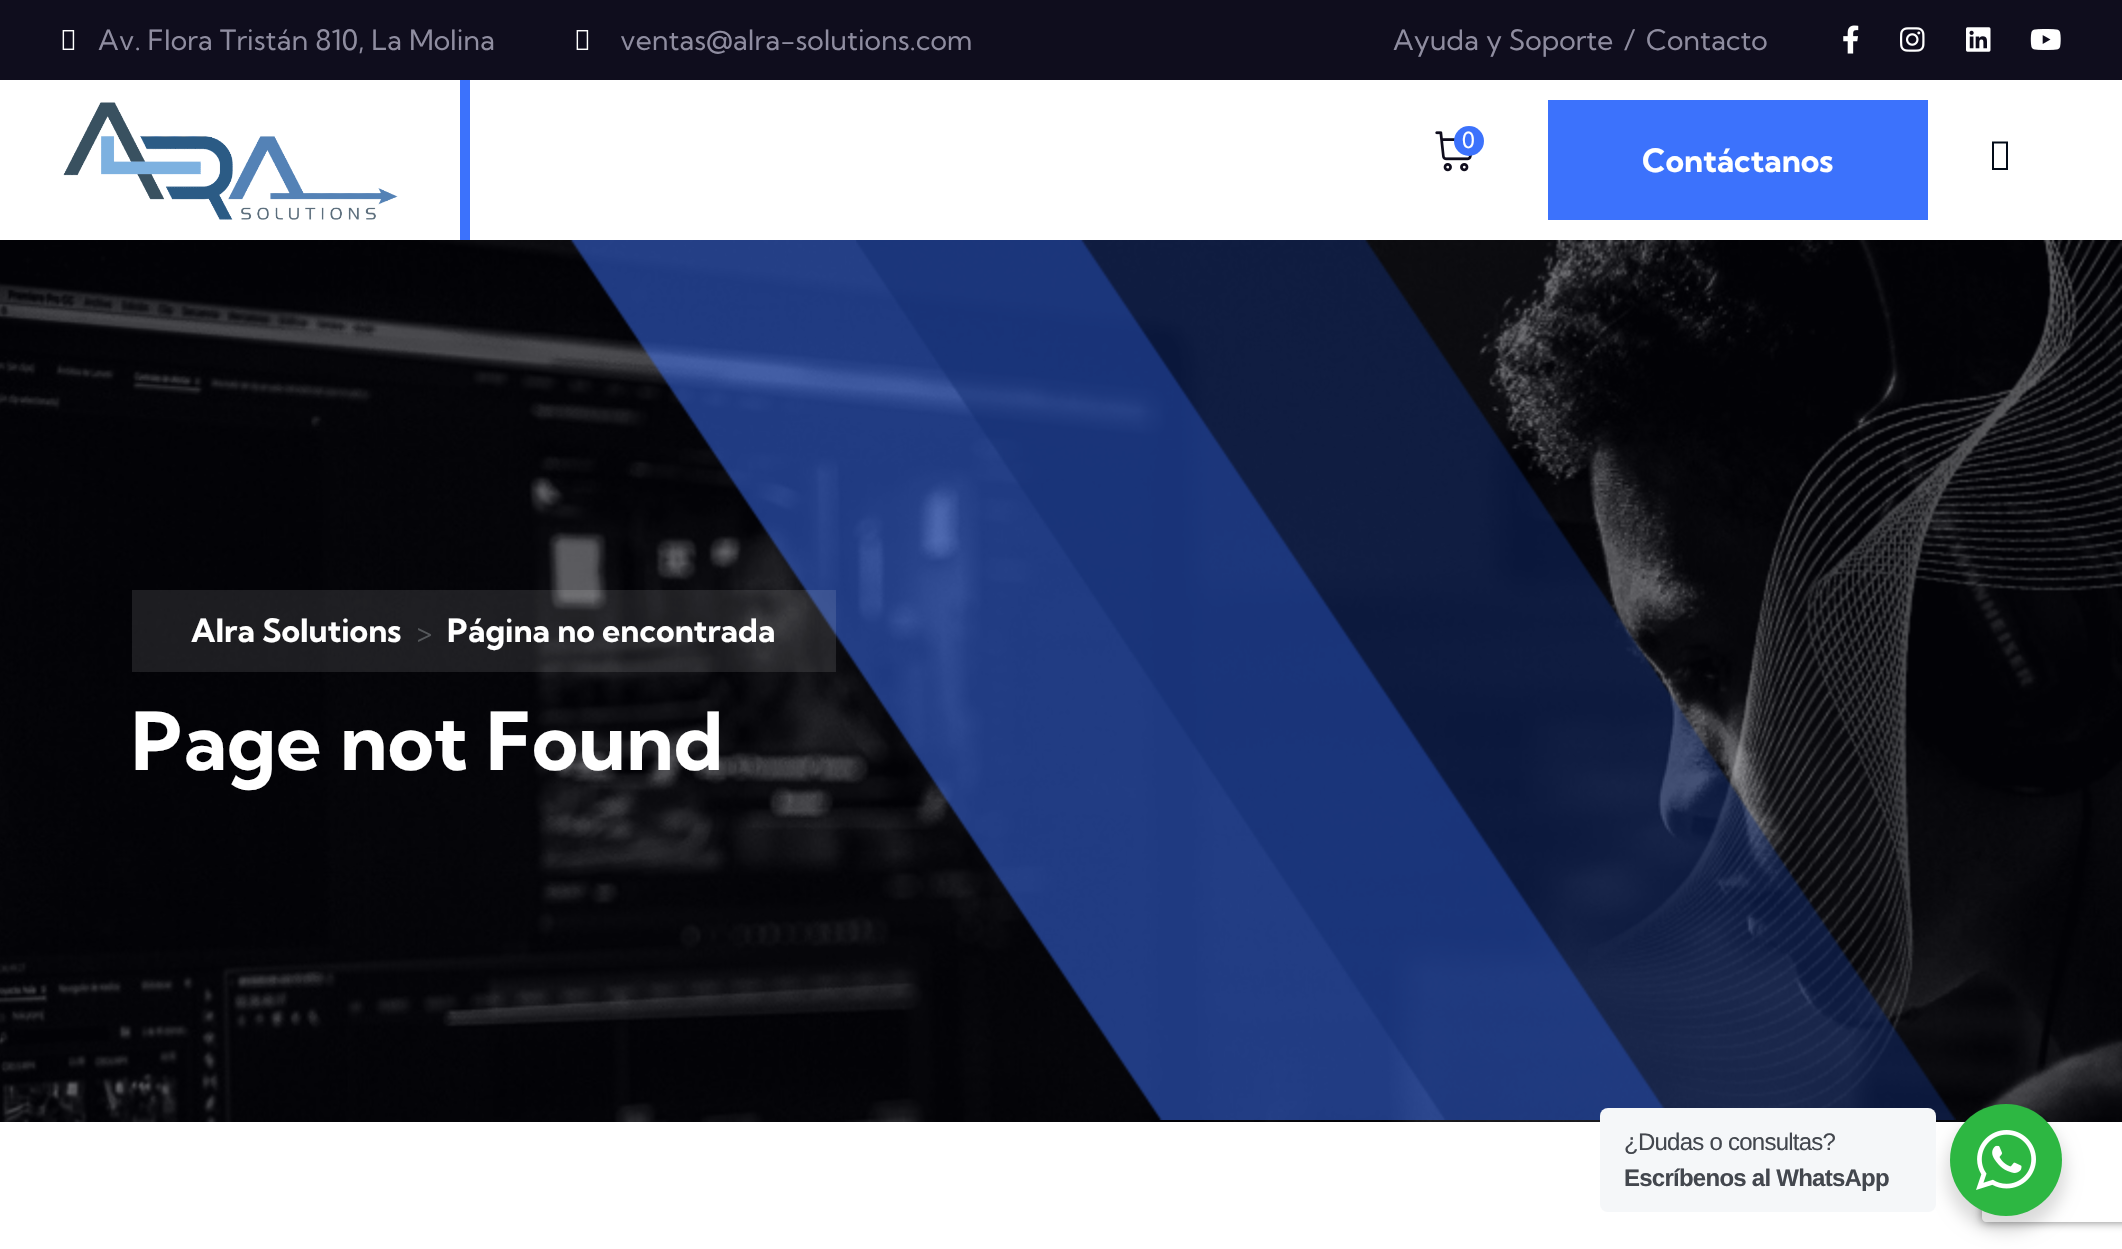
void draw(SkCanvas* canvas) {
  SkPaint paint;
  paint.setAntiAlias(true);
  auto face = [&](const char* family, int weight, float size, bool italic = false) {
    SkFontStyle style(weight, SkFontStyle::kNormal_Width,
      italic ? SkFontStyle::kItalic_Slant : SkFontStyle::kUpright_Slant);
    SkFont result(fontMgr->matchFamilyStyle(family, style), size);
    result.setSubpixel(true);
    return result;
  };
  auto writeSpaced = [&](const char* s, float x, float y, const SkFont& font, const SkPaint& ink, float letter, float word) {
    std::vector<SkGlyphID> glyphs(font.countText(s, strlen(s), SkTextEncoding::kUTF8));
    std::vector<float> xs(glyphs.size());
    font.textToGlyphs(s, strlen(s), SkTextEncoding::kUTF8, glyphs);
    font.getXPos(glyphs, xs, x);
    float extra = 0;
    for (size_t i = 0; i < glyphs.size(); i++) {
      xs[i] += extra;
      extra += letter + word * (glyphs[i] == font.unicharToGlyph(' '));
    }
    canvas->drawTextBlob(SkTextBlob::MakeFromPosHGlyphs(glyphs, xs, y, font), 0, 0, ink);
  };
  auto paste = [&](const char* path, float x, float y, float w, float h) {
    auto image = SkImages::DeferredFromEncodedData(SkData::MakeFromFileName(path));
    canvas->drawImageRect(image, SkRect::MakeXYWH(x, y, w, h), SkSamplingOptions());
  };
  auto shape = [&](const char* data, bool evenOdd = false) {
    SkPath result = *SkParsePath::FromSVGString(data);
    if (evenOdd) result.setFillType(SkPathFillType::kEvenOdd);
    return result;
  };
  canvas->clear(0xffffffff);
  paint.setColor(0xff0f0d1d);
  canvas->drawRect(SkRect::MakeXYWH(0, 0, 2122, 80), paint);
  paste("img/1.png", 62, 30, 13, 20);
  paste("img/1.png", 576, 30, 13, 20);
  paste("img/2.png", 1843, 25, 16, 29);
  paste("img/3.png", 1900, 27, 25, 25);
  paste("img/4.png", 1966, 27, 25, 25);
  paste("img/5.png", 2030, 29, 31, 21);
  paint.setColor(0xff3c72fc);
  canvas->drawRect(SkRect::MakeXYWH(460, 80, 10, 160), paint);
  paste("img/6.png", 63, 102, 335, 118);
  paste("img/7.png", 1435, 131, 37, 41);
  canvas->drawCircle(1469, 141, 15, paint);
  canvas->drawRect(SkRect::MakeXYWH(1548, 100, 380, 120), paint);
  paint.setColor(0xff020b18);
  canvas->drawPath(shape("M1992 170V141.5H2008V170ZM1994 168H2006V143.5H1994Z"), paint);
  canvas->save();
  canvas->clipPath(shape("M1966 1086H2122V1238H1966ZM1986 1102H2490C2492 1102 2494 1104 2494 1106V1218C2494 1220 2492 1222 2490 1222H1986C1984 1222 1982 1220 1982 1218V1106C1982 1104 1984 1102 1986 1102Z", true), true);
  paint.setColor(0xff808080);
  paint.setMaskFilter(SkMaskFilter::MakeBlur(kNormal_SkBlurStyle, 5));
  canvas->drawRoundRect(SkRect::MakeXYWH(1982, 1102, 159, 120), 4, 4, paint);
  paint.setMaskFilter(nullptr);
  canvas->restore();
  paint.setColor(0xff03020a);
  canvas->drawRect(SkRect::MakeXYWH(0, 240, 2122, 882), paint);
  paste("img/8.png", 0, 240, 2122, 882);
  paste("img/11.png", 1588, 240, 534, 868);
  paste("img/9.png", 570, 240, 1095, 880);
  paint.setColor(0x1affffff);
  canvas->drawRect(SkRect::MakeXYWH(132, 590, 704, 82), paint);
  paste("img/10.png", 856, 240, 1100, 880);
  paint.setColor(0x24000000);
  paint.setMaskFilter(SkMaskFilter::MakeBlur(kNormal_SkBlurStyle, 8));
  canvas->drawRoundRect(SkRect::MakeXYWH(1946, 1112, 120, 120), 60, 60, paint);
  paint.setMaskFilter(nullptr);
  paint.setColor(0xfff5f7f9);
  canvas->drawRoundRect(SkRect::MakeXYWH(1600, 1108, 336, 104), 8, 8, paint);
  paint.setColor(0xff2db742);
  canvas->drawCircle(2006, 1160, 56, paint);
  paste("img/12.png", 1976, 1130, 60, 60);
  auto f0 = face("Kumbh Sans", 400, 28);
  paint.setColor(0xff8f8da0);
  {
    const struct { const char* s; float x, y; } items[] = {
      {"Av. Flora Tristán 810, La Molina", 98, 50},
      {"ventas@alra-solutions.com", 620, 50},
      {"Ayuda y Soporte", 1393, 50},
      {"/", 1624, 50},
      {"Contacto", 1646, 50},
    };
    for (auto [s, x, y] : items) {
      canvas->drawString(s, x, y, f0, paint);
    }
  }
  auto f1 = face("Kumbh Sans", 400, 22);
  paint.setColor(0xffffffff);
  canvas->drawString("0", 1462, 148, f1, paint);
  auto f2 = face("Kumbh Sans", 700, 32);
  canvas->drawString("Contáctanos", 1642, 172, f2, paint);
  canvas->drawString("Alra Solutions", 191, 642, f2, paint);
  paint.setColor(0xff55585b);
  canvas->drawString(">", 416, 642, f0, paint);
  paint.setColor(0xffffffff);
  canvas->drawString("Página no encontrada", 447, 642, f2, paint);
  auto f3 = face("Kumbh Sans", 700, 80);
  canvas->drawString("Page not Found", 131, 770, f3, paint);
  auto f4 = face("Liberation Sans", 400, 24);
  paint.setColor(0xff43474e);
  writeSpaced("¿Dudas o consultas?", 1624, 1150, f4, paint, -0.75f, 0);
  auto f5 = face("Liberation Sans", 700, 24);
  writeSpaced("Escríbenos al WhatsApp", 1624, 1186, f5, paint, -0.75f, 0);
}
